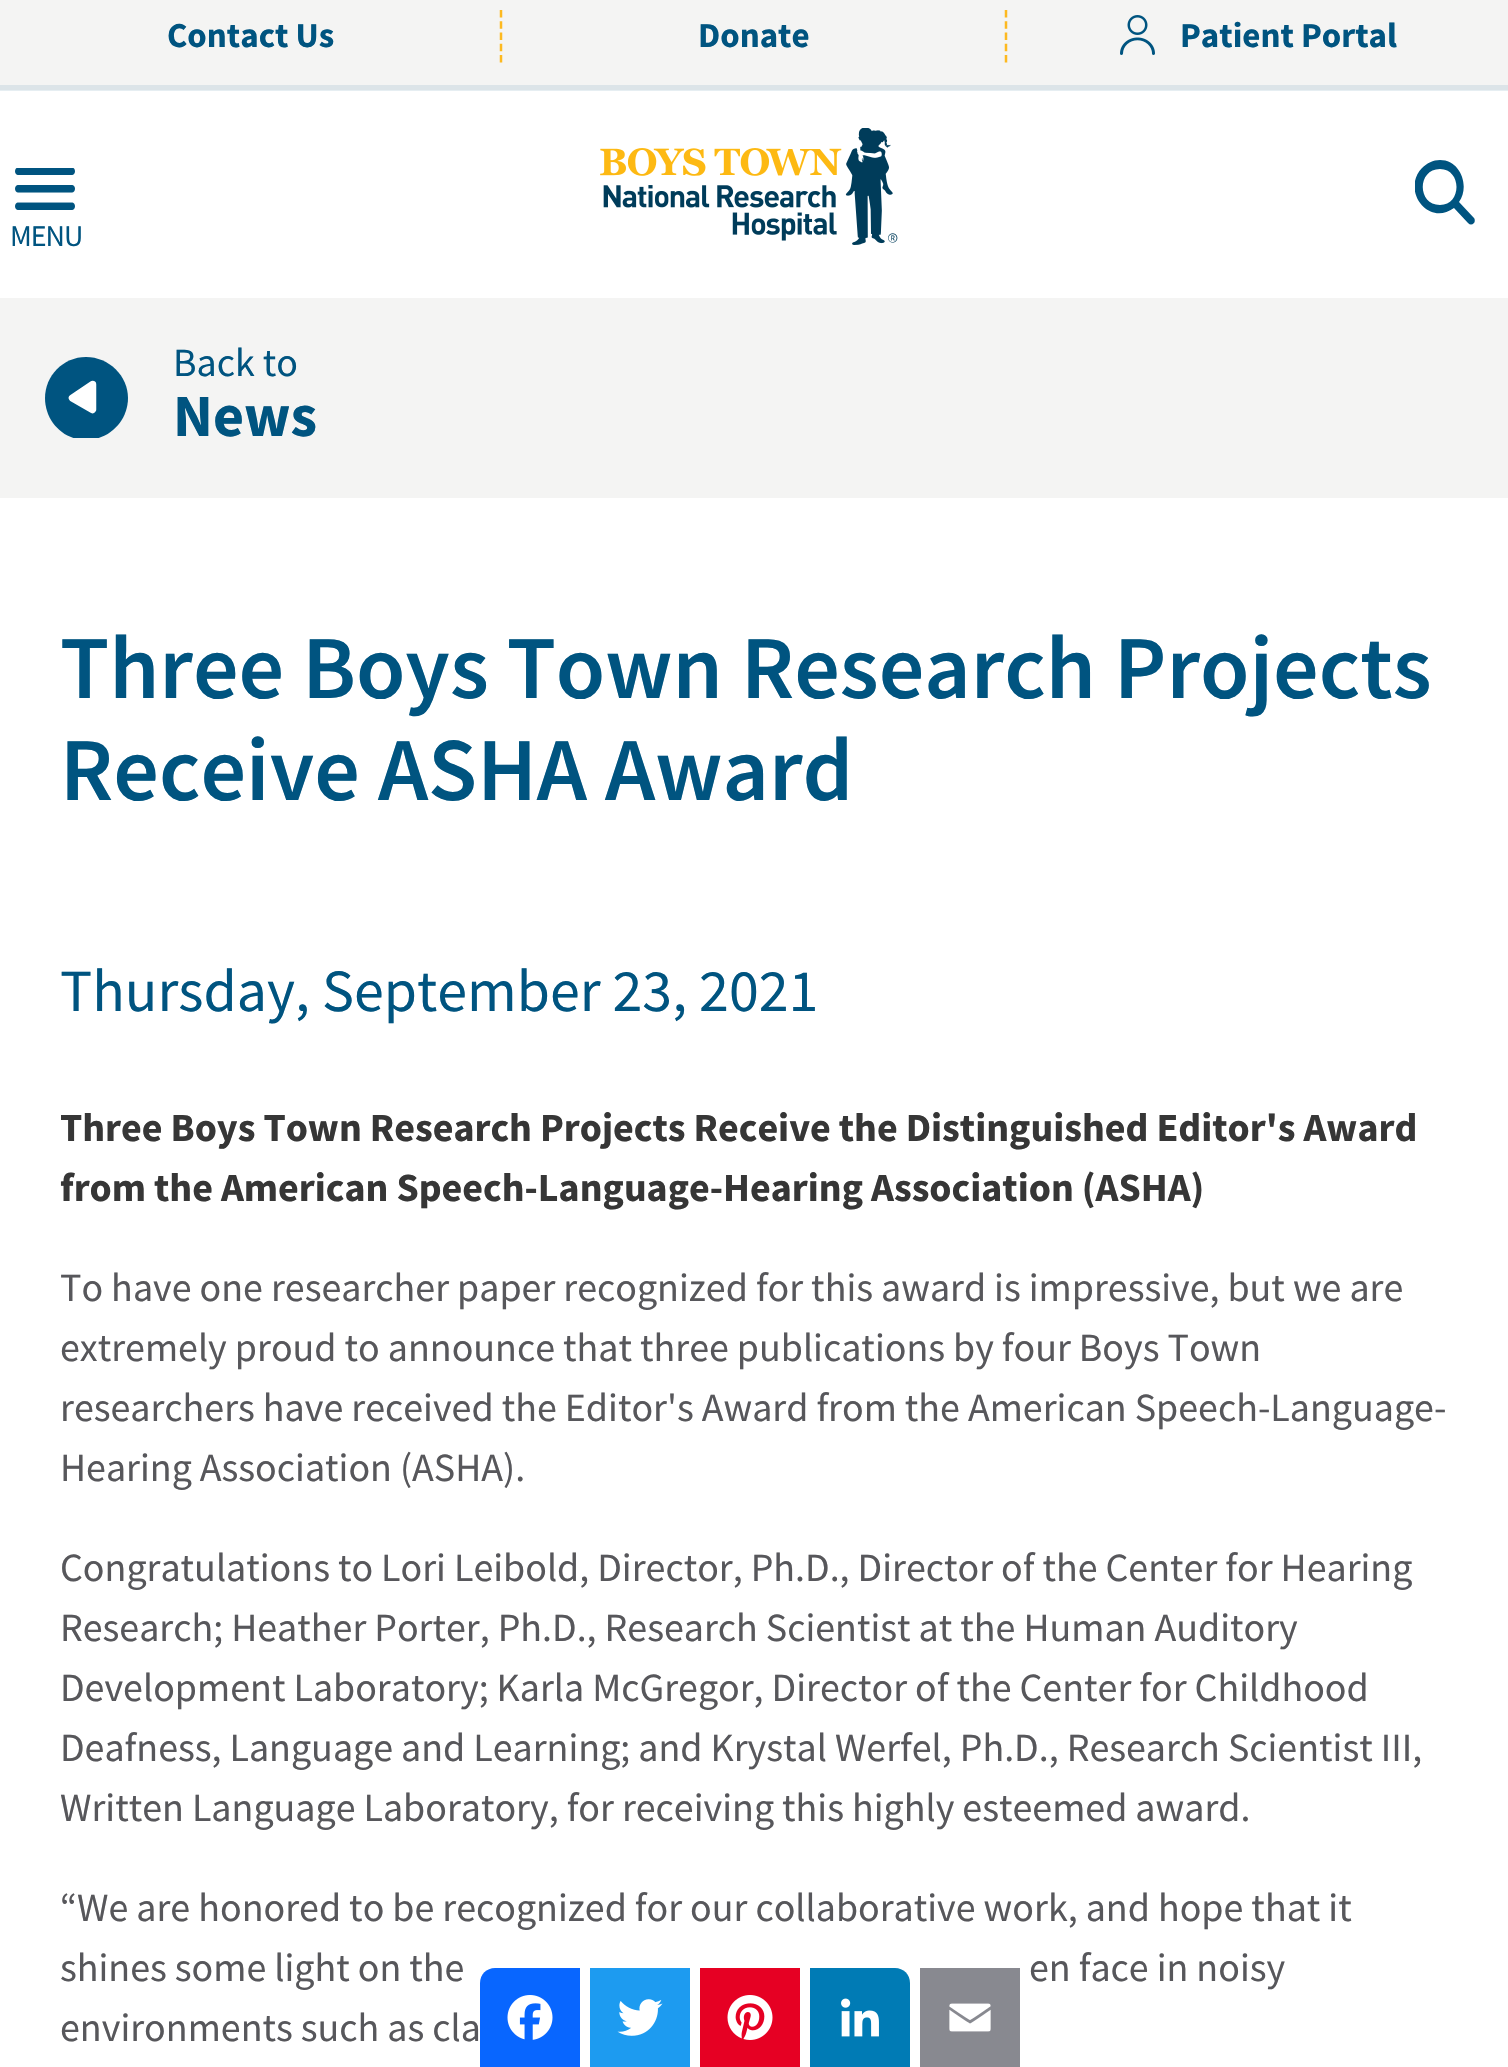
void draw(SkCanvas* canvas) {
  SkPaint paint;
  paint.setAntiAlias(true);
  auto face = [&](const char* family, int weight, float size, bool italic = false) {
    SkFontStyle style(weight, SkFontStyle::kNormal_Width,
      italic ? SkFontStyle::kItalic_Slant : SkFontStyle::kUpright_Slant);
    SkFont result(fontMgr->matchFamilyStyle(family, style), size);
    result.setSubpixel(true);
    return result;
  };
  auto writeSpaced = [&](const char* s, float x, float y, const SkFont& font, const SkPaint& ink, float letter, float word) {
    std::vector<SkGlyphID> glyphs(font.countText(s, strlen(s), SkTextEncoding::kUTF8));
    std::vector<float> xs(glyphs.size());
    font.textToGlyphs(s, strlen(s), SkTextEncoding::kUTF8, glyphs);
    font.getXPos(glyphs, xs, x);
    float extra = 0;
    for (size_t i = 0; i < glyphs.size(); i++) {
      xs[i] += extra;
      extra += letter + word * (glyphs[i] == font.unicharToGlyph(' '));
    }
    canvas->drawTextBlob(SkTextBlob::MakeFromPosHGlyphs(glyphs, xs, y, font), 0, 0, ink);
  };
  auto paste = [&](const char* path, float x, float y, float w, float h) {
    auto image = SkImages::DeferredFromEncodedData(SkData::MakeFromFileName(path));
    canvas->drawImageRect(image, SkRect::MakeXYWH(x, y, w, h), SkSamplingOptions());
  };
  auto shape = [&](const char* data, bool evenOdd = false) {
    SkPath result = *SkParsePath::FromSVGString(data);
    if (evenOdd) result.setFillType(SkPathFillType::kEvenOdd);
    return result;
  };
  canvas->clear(0xffffffff);
  paint.setColor(0xffe6eef2);
  canvas->drawRect(SkRect::MakeXYWH(0, 90, 1508, 1), paint);
  canvas->save();
  canvas->clipPath(shape("M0 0H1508V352H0ZM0-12H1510V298H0Z", true), true);
  paint.setColor(0x29000000);
  paint.setMaskFilter(SkMaskFilter::MakeBlur(kNormal_SkBlurStyle, 17.5f));
  canvas->drawRect(SkRect::MakeXYWH(0, -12, 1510, 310), paint);
  paint.setMaskFilter(nullptr);
  canvas->restore();
  paint.setColor(0xfff4f4f3);
  canvas->drawRect(SkRect::MakeXYWH(0, 0, 1508, 85), paint);
  paint.setColor(0xffdce4e8);
  canvas->drawRect(SkRect::MakeXYWH(0, 85, 1508, 5), paint);
  paint.setStroke(true);
  paint.setStrokeWidth(2.5f);
  paint.setColor(0xfffdb91f);
  paint.setPathEffect(SkDashPathEffect::Make({{7.5f, 3.75f}}, 0));
  canvas->drawPath(shape("M501 10V62.5"), paint);
  paint.setPathEffect(nullptr);
  paint.setPathEffect(SkDashPathEffect::Make({{7.5f, 3.75f}}, 0));
  canvas->drawPath(shape("M1006 10V62.5"), paint);
  paint.setPathEffect(nullptr);
  paste("img/1.png", 1120, 15, 35, 40);
  paste("img/2.png", 600, 128, 298, 117);
  canvas->save();
  canvas->clipRect(SkRect::MakeXYWH(1415, 160, 60, 65));
  paint.setStroke(false);
  paint.setColor(0xff005480);
  canvas->drawPath(shape("M1440 169C1462 169 1462 205 1440 205C1417 205 1417 169 1440 169ZM1440 160C1433 160 1427 163 1422 168C1401 190 1428 227 1454 208L1468 223C1470 225 1472 225 1474 223C1475 222 1475 219 1474 218L1459 202C1470 187 1461 160 1440 160Z"), paint);
  canvas->restore();
  paste("img/3.png", 15, 168, 60, 42);
  paint.setColor(0xfff4f4f3);
  canvas->drawRect(SkRect::MakeXYWH(0, 298, 1508, 200), paint);
  canvas->save();
  canvas->clipRect(SkRect::MakeXYWH(45, 355, 83, 83));
  paint.setColor(0xff005480);
  canvas->drawPath(shape("M86 440C63 440 45 421 45 398C45 376 63 357 86 357C109 357 128 376 128 398C128 421 109 440 86 440Z", true), paint);
  canvas->restore();
  paint.setColor(0xffffffff);
  canvas->drawPath(shape("M72.5 398L92.5 409.5V384.5Z"), paint);
  paint.setStroke(true);
  paint.setStrokeWidth(7.5f);
  paint.setStrokeCap(SkPaint::kRound_Cap);
  paint.setStrokeJoin(SkPaint::kRound_Join);
  canvas->drawPath(shape("M72.5 398L92.5 409.5V384.5Z"), paint);
  paint.setStroke(false);
  paint.setColor(0xff0866ff);
  canvas->drawPath(shape("M495 1968H580V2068H480V1983C480 1974.5 486.5 1968 495 1968Z"), paint);
  paste("img/4.png", 507, 1995, 46, 45);
  paint.setColor(0xff1d9bf0);
  canvas->drawRect(SkRect::MakeXYWH(590, 1968, 100, 99), paint);
  paste("img/5.png", 617, 1999, 46, 37);
  paint.setColor(0xffe60023);
  canvas->drawRect(SkRect::MakeXYWH(700, 1968, 100, 99), paint);
  paste("img/6.png", 727, 1995, 46, 45);
  paint.setColor(0xff007bb5);
  canvas->drawPath(shape("M810 1968H895C903.5 1968 910 1974.5 910 1983V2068H810Z"), paint);
  paste("img/7.png", 841, 1998, 38, 39);
  paint.setColor(0xff888990);
  canvas->drawRect(SkRect::MakeXYWH(920, 1968, 100, 99), paint);
  paste("img/8.png", 949, 2003, 42, 29);
  auto f0 = face("Source Sans Pro", 700, 35);
  paint.setColor(0xff005480);
  {
    const struct { const char* s; float x, y; } items[] = {
      {"Contact Us", 167, 47},
      {"Donate", 698, 47},
      {"Patient Portal", 1180, 47},
    };
    for (auto [s, x, y] : items) {
      canvas->drawString(s, x, y, f0, paint);
    }
  }
  auto f1 = face("Source Sans Pro", 400, 30);
  writeSpaced("MENU", 10, 246, f1, paint, -1, 0);
  auto f2 = face("Source Sans Pro", 400, 40);
  canvas->drawString("Back to", 173, 376, f2, paint);
  auto f3 = face("Source Sans Pro", 700, 60);
  canvas->drawString("News", 173, 436, f3, paint);
  auto f4 = face("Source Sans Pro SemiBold", 600, 90);
  canvas->drawString("Three Boys Town Research Projects", 60, 698, f4, paint);
  canvas->drawString("Receive ASHA Award", 60, 800, f4, paint);
  auto f5 = face("Source Sans Pro", 400, 60);
  canvas->drawString("Thursday, September 23, 2021", 60, 1011, f5, paint);
  auto f6 = face("Source Sans Pro", 700, 40);
  paint.setColor(0xff363636);
  canvas->drawString("Three Boys Town Research Projects Receive the Distinguished Editor's Award", 60, 1141, f6, paint);
  canvas->drawString("from the American Speech-Language-Hearing Association (ASHA)", 60, 1201, f6, paint);
  paint.setColor(0xff57575b);
  {
    const struct { const char* s; float x, y; } items[] = {
      {"To have one researcher paper recognized for this award is impressive, but we are", 60, 1301},
      {"extremely proud to announce that three publications by four Boys Town", 60, 1361},
      {"researchers have received the Editor's Award from the American Speech-Language-", 60, 1421},
      {"Hearing Association (ASHA).", 60, 1481},
      {"Congratulations to Lori Leibold, Director, Ph.D., Director of the Center for Hearing", 60, 1581},
      {"Research; Heather Porter, Ph.D., Research Scientist at the Human Auditory", 60, 1641},
      {"Development Laboratory; Karla McGregor, Director of the Center for Childhood", 60, 1701},
      {"Deafness, Language and Learning; and Krystal Werfel, Ph.D., Research Scientist III,", 60, 1761},
      {"Written Language Laboratory, for receiving this highly esteemed award.", 60, 1821},
      {"“We are honored to be recognized for our collaborative work, and hope that it", 60, 1921},
      {"shines some light on the", 60, 1981},
      {"en face in noisy", 1029, 1981},
      {"environments such as cla", 60, 2041},
    };
    for (auto [s, x, y] : items) {
      canvas->drawString(s, x, y, f2, paint);
    }
  }
}
